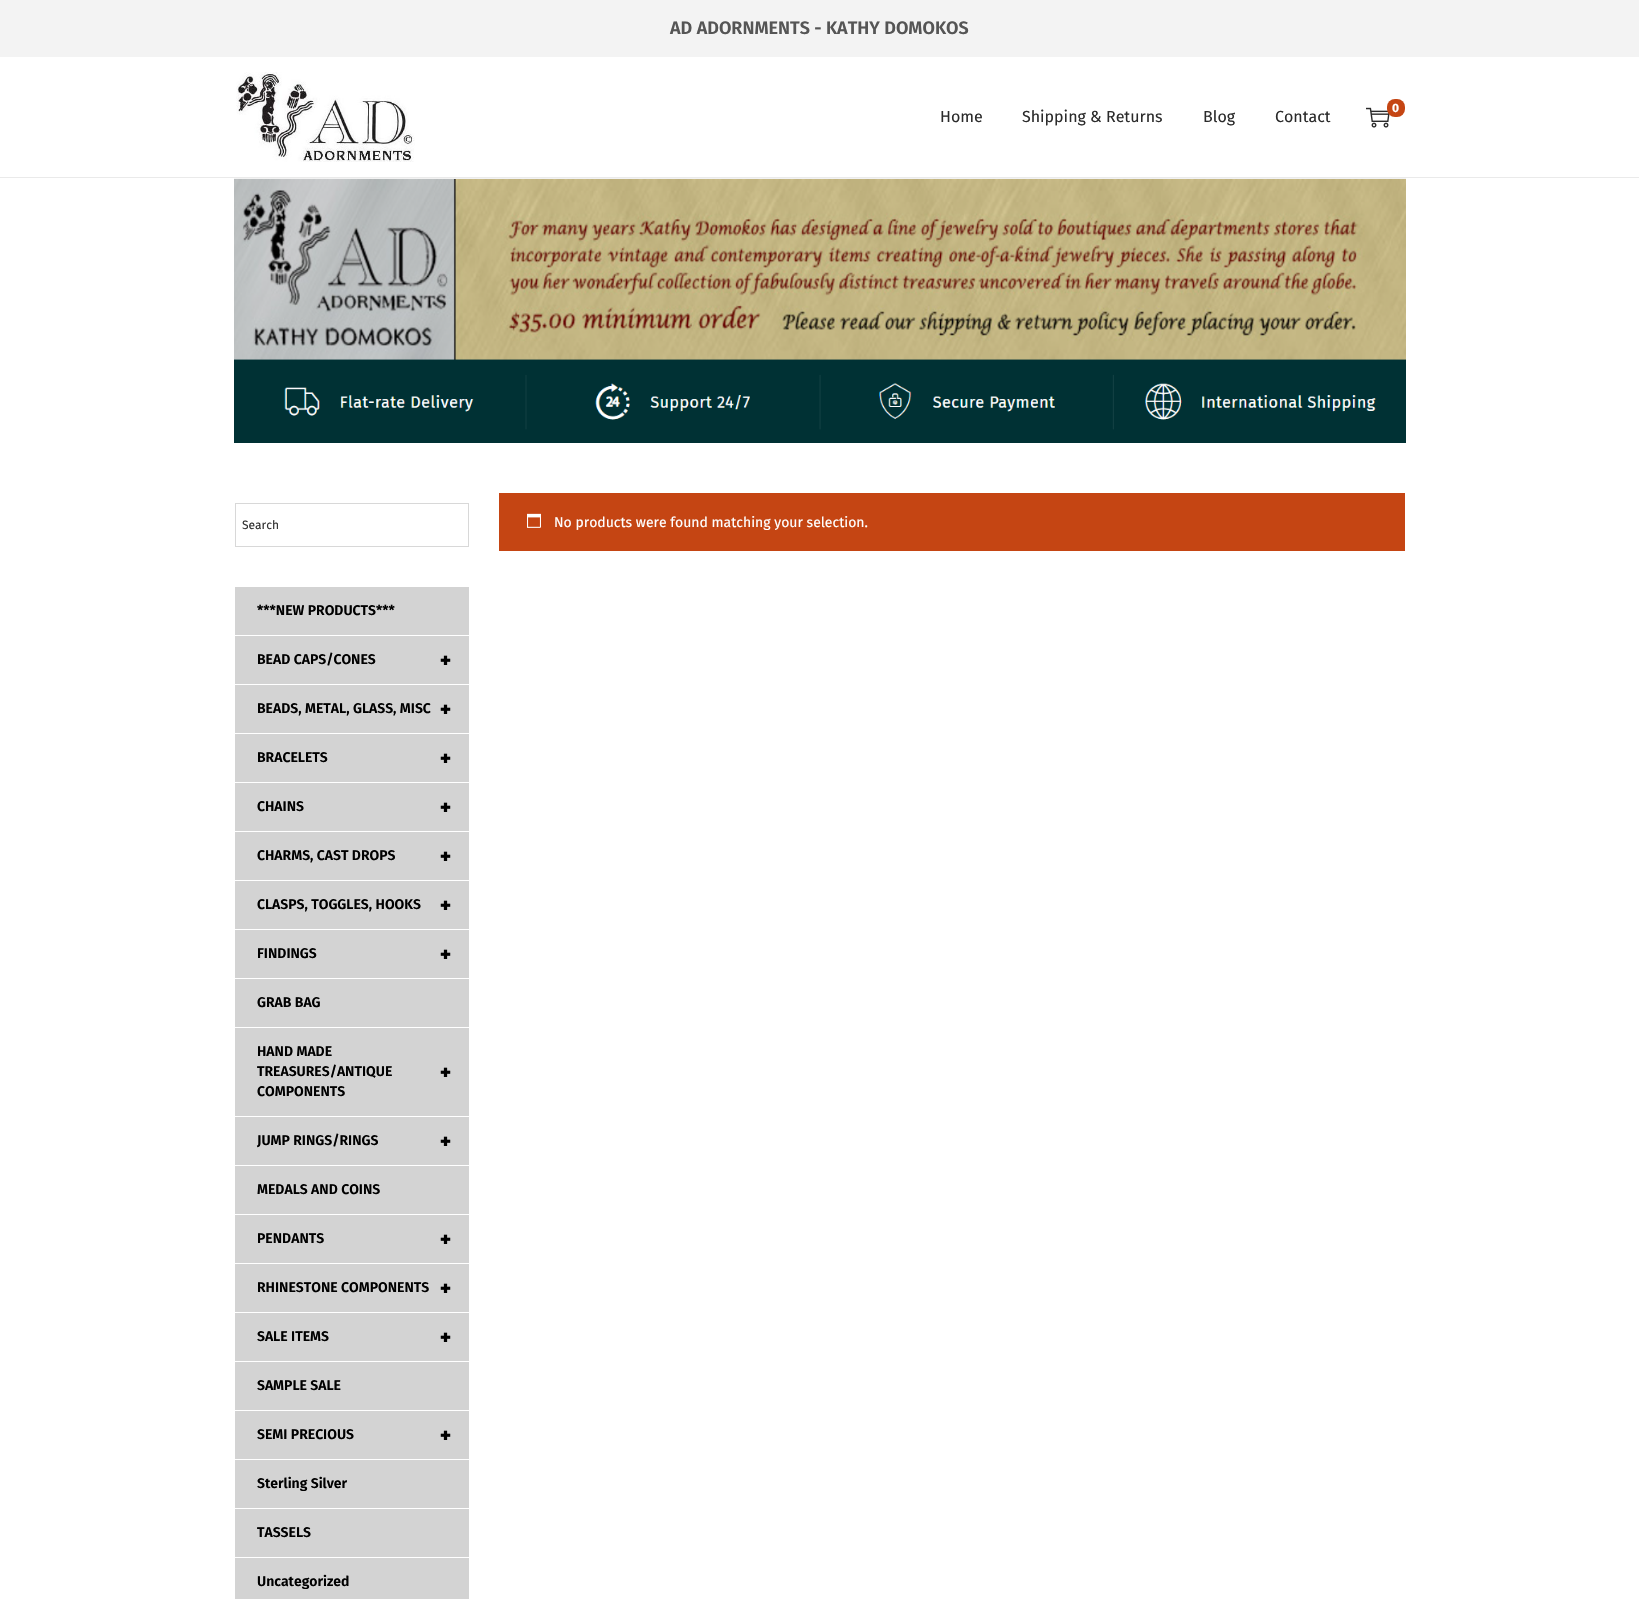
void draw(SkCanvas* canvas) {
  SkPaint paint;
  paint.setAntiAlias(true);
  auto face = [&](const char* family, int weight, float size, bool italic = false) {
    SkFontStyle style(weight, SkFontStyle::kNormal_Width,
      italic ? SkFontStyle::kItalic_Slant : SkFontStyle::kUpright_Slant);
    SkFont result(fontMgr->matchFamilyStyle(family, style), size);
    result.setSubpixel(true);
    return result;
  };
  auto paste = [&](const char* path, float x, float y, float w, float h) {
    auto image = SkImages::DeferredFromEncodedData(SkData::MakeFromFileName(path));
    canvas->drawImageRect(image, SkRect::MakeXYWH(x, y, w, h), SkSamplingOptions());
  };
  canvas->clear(0xffffffff);
  paint.setColor(0xfff3f3f3);
  canvas->drawRect(SkRect::MakeXYWH(0, 0, 1639, 57), paint);
  paint.setColor(0xffeaeaea);
  canvas->drawRect(SkRect::MakeXYWH(0, 177, 1639, 1), paint);
  paste("img/1.png", 236, 72, 179, 90);
  paste("img/2.png", 1366, 107, 24, 21);
  paint.setColor(0xffc54513);
  canvas->drawRoundRect(SkRect::MakeXYWH(1387, 99, 18, 18), 8, 8, paint);
  paint.setColor(0xfff2f2f2);
  canvas->drawRect(SkRect::MakeXYWH(234, 178, 1172, 1), paint);
  paste("img/3.png", 234, 179, 1172, 264);
  paint.setStroke(true);
  paint.setStrokeWidth(1);
  paint.setColor(0xffd8d8d8);
  canvas->drawRect(SkRect::MakeXYWH(235.5f, 503.5f, 233, 43), paint);
  paint.setStroke(false);
  {
    const struct { float x, y, w, h; SkColor color; } items[] = {
      {235, 587, 234, 48, 0xffd3d3d3},
      {235, 636, 234, 48, 0xffd3d3d3},
      {235, 685, 234, 48, 0xffd3d3d3},
      {235, 734, 234, 48, 0xffd3d3d3},
      {235, 783, 234, 48, 0xffd3d3d3},
      {235, 832, 234, 48, 0xffd3d3d3},
      {235, 881, 234, 48, 0xffd3d3d3},
      {235, 930, 234, 48, 0xffd3d3d3},
      {235, 979, 234, 48, 0xffd3d3d3},
      {235, 1028, 234, 88, 0xffd3d3d3},
      {235, 1117, 234, 48, 0xffd3d3d3},
      {235, 1166, 234, 48, 0xffd3d3d3},
      {235, 1215, 234, 48, 0xffd3d3d3},
      {235, 1264, 234, 48, 0xffd3d3d3},
      {235, 1313, 234, 48, 0xffd3d3d3},
      {235, 1362, 234, 48, 0xffd3d3d3},
      {235, 1411, 234, 48, 0xffd3d3d3},
      {235, 1460, 234, 48, 0xffd3d3d3},
      {235, 1509, 234, 48, 0xffd3d3d3},
      {235, 1558, 234, 41, 0xffd3d3d3},
      {499, 493, 906, 58, 0xffc54513},
    };
    for (auto [x, y, w, h, color] : items) {
      paint.setColor(color);
      canvas->drawRect(SkRect::MakeXYWH(x, y, w, h), paint);
    }
  }
  paste("img/4.png", 527, 513, 14, 15);
  auto f0 = face("Fira Sans", 600, 18);
  paint.setColor(0xff555555);
  canvas->drawString("AD ADORNMENTS - KATHY DOMOKOS", 670, 34, f0, paint);
  auto f1 = face("Fira Sans", 700, 12);
  paint.setColor(0xffffffff);
  canvas->drawString("0", 1392, 112, f1, paint);
  auto f2 = face("Fira Sans", 400, 16);
  paint.setColor(0xff2b2b2b);
  {
    const struct { const char* s; float x, y; } items[] = {
      {"Home", 940, 122},
      {"Shipping & Returns", 1022, 122},
      {"Blog", 1203, 122},
      {"Contact", 1275, 122},
    };
    for (auto [s, x, y] : items) {
      canvas->drawString(s, x, y, f2, paint);
    }
  }
  auto f3 = face("Fira Sans", 400, 12);
  paint.setColor(0xff313131);
  canvas->drawString("Search", 242, 529, f3, paint);
  auto f4 = face("Fira Sans", 600, 14);
  paint.setColor(0xff000000);
  canvas->drawString("***NEW PRODUCTS***", 257, 615, f4, paint);
  canvas->drawString("BEAD CAPS/CONES", 257, 664, f4, paint);
  auto f5 = face("Fira Sans", 900, 20);
  canvas->drawString("+", 440, 667, f5, paint);
  canvas->drawString("BEADS, METAL, GLASS, MISC", 257, 713, f4, paint);
  canvas->drawString("+", 440, 716, f5, paint);
  canvas->drawString("BRACELETS", 257, 762, f4, paint);
  canvas->drawString("+", 440, 765, f5, paint);
  canvas->drawString("CHAINS", 257, 811, f4, paint);
  canvas->drawString("+", 440, 814, f5, paint);
  canvas->drawString("CHARMS, CAST DROPS", 257, 860, f4, paint);
  canvas->drawString("+", 440, 863, f5, paint);
  canvas->drawString("CLASPS, TOGGLES, HOOKS", 257, 909, f4, paint);
  canvas->drawString("+", 440, 912, f5, paint);
  canvas->drawString("FINDINGS", 257, 958, f4, paint);
  canvas->drawString("+", 440, 961, f5, paint);
  {
    const struct { const char* s; float x, y; } items[] = {
      {"GRAB BAG", 257, 1007},
      {"HAND MADE", 257, 1056},
      {"TREASURES/ANTIQUE", 257, 1076},
    };
    for (auto [s, x, y] : items) {
      canvas->drawString(s, x, y, f4, paint);
    }
  }
  canvas->drawString("+", 440, 1079, f5, paint);
  canvas->drawString("COMPONENTS", 257, 1096, f4, paint);
  canvas->drawString("JUMP RINGS/RINGS", 257, 1145, f4, paint);
  canvas->drawString("+", 440, 1148, f5, paint);
  canvas->drawString("MEDALS AND COINS", 257, 1194, f4, paint);
  canvas->drawString("PENDANTS", 257, 1243, f4, paint);
  canvas->drawString("+", 440, 1246, f5, paint);
  canvas->drawString("RHINESTONE COMPONENTS", 257, 1292, f4, paint);
  canvas->drawString("+", 440, 1295, f5, paint);
  canvas->drawString("SALE ITEMS", 257, 1341, f4, paint);
  canvas->drawString("+", 440, 1344, f5, paint);
  canvas->drawString("SAMPLE SALE", 257, 1390, f4, paint);
  canvas->drawString("SEMI PRECIOUS", 257, 1439, f4, paint);
  canvas->drawString("+", 440, 1442, f5, paint);
  {
    const struct { const char* s; float x, y; } items[] = {
      {"Sterling Silver", 257, 1488},
      {"TASSELS", 257, 1537},
      {"Uncategorized", 257, 1586},
    };
    for (auto [s, x, y] : items) {
      canvas->drawString(s, x, y, f4, paint);
    }
  }
  auto f6 = face("Fira Sans", 400, 14);
  paint.setColor(0xffffffff);
  canvas->drawString("No products were found matching your selection.", 554, 527, f6, paint);
}
